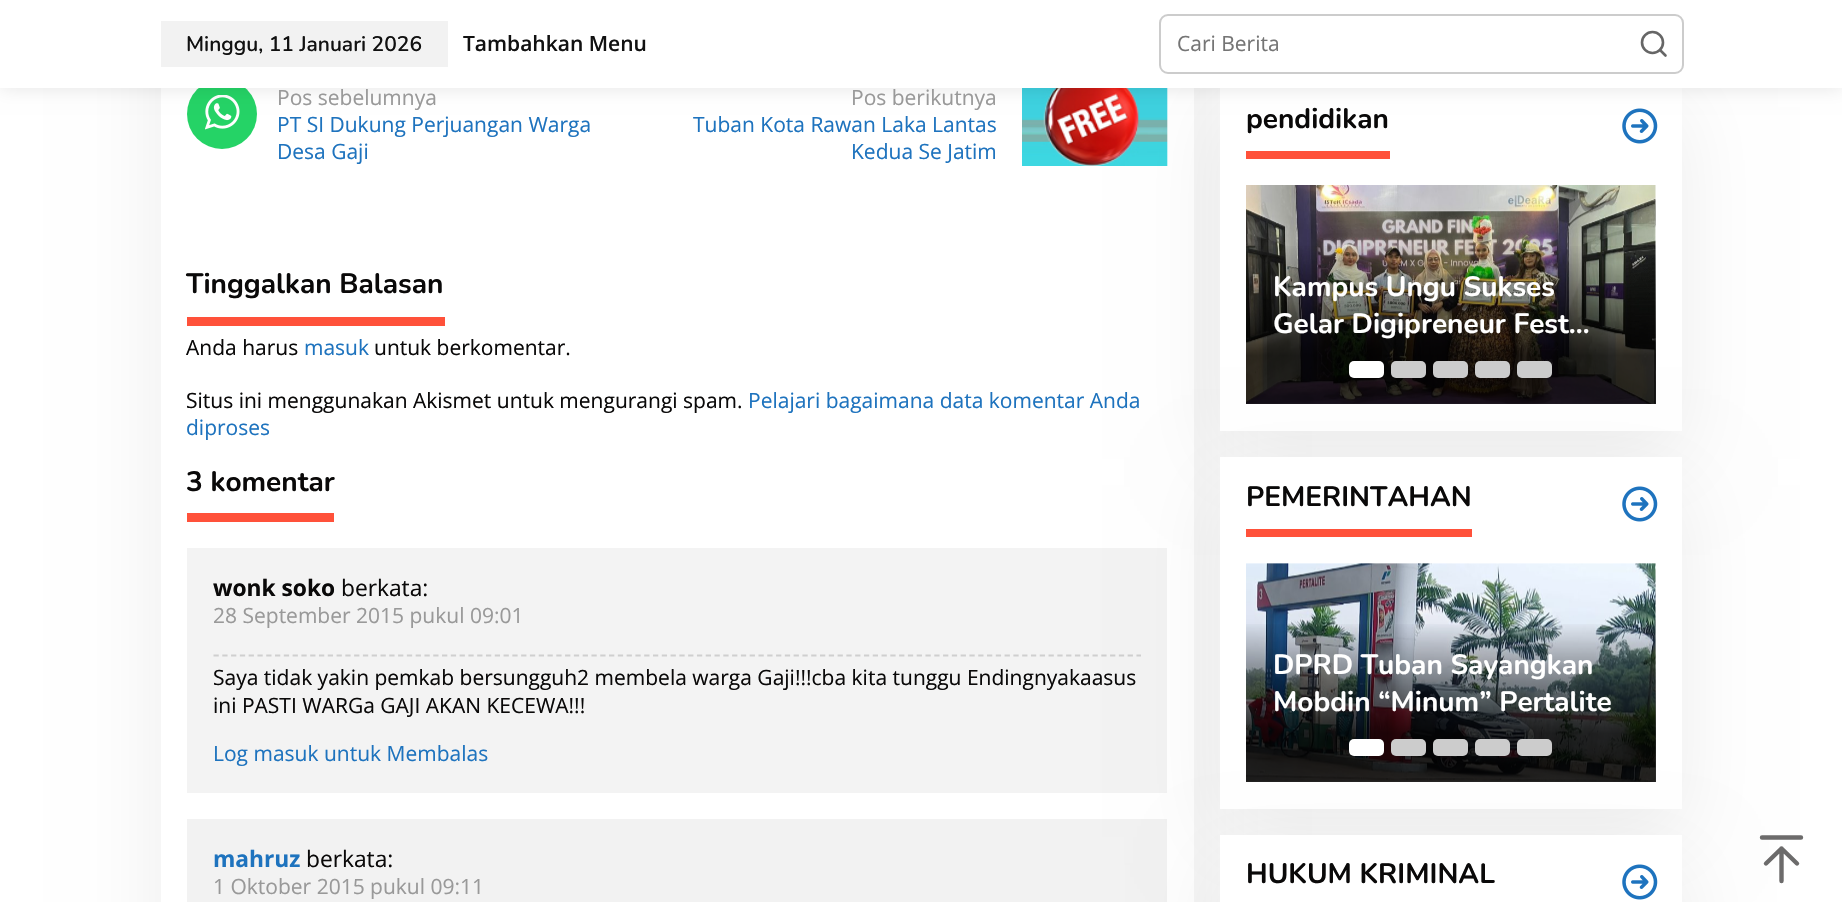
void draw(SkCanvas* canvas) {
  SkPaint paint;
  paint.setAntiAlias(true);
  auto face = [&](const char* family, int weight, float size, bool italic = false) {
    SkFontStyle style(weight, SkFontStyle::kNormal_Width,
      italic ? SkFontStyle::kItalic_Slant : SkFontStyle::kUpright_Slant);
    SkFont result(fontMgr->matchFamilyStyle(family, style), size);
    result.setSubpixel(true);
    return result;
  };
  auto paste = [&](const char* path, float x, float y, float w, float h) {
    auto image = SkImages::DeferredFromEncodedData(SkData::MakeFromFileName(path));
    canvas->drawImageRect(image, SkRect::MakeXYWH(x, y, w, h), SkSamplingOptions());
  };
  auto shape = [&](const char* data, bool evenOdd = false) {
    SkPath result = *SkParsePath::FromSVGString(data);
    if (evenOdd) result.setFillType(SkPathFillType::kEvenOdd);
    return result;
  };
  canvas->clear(0xffffffff);
  paint.setColor(0x12000000);
  paint.setMaskFilter(SkMaskFilter::MakeBlur(kNormal_SkBlurStyle, 39.5f));
  canvas->drawRect(SkRect::MakeXYWH(161, -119, 1033, 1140), paint);
  paint.setMaskFilter(nullptr);
  paint.setColor(0xffffffff);
  canvas->drawRect(SkRect::MakeXYWH(161, 88, 1033, 814), paint);
  paint.setColor(0xff25d366);
  canvas->drawCircle(222, 114, 35, paint);
  paste("img/1.png", 205, 95, 35, 35);
  paste("img/2.png", 1022, 88, 146, 78);
  paint.setColor(0xfff3f3f3);
  canvas->drawRect(SkRect::MakeXYWH(187, 548, 980, 245), paint);
  paint.setColor(0x12000000);
  paint.setMaskFilter(SkMaskFilter::MakeBlur(kNormal_SkBlurStyle, 39.5f));
  canvas->drawRect(SkRect::MakeXYWH(1220, 107, 462, 352), paint);
  paint.setMaskFilter(nullptr);
  paint.setColor(0xffffffff);
  canvas->drawRect(SkRect::MakeXYWH(1220, 88, 462, 343), paint);
  paste("img/3.png", 1622, 108, 36, 36);
  paint.setColor(0x1a000000);
  paint.setMaskFilter(SkMaskFilter::MakeBlur(kNormal_SkBlurStyle, 9));
  canvas->drawRect(SkRect::MakeXYWH(0, 0, 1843, 88), paint);
  paint.setMaskFilter(nullptr);
  paint.setColor(0xffffffff);
  canvas->drawRect(SkRect::MakeXYWH(0, 0, 1842, 88), paint);
  paint.setColor(0xfff2f2f2);
  canvas->drawRect(SkRect::MakeXYWH(161, 21, 287, 46), paint);
  paint.setStroke(true);
  paint.setStrokeWidth(2);
  paint.setColor(0xffcccccc);
  canvas->drawRoundRect(SkRect::MakeXYWH(1160, 15, 523, 58), 8, 8, paint);
  paint.setStrokeWidth(2.6f);
  paint.setColor(0xff666666);
  canvas->drawCircle(1652.5f, 42.5f, 10.5f, paint);
  paint.setStrokeCap(SkPaint::kRound_Cap);
  paint.setStrokeJoin(SkPaint::kRound_Join);
  canvas->drawPath(shape("M1665.5 55.5L1660 50"), paint);
  paint.setStroke(false);
  paint.setColor(0xffff513a);
  canvas->drawRect(SkRect::MakeXYWH(187, 317, 258, 9), paint);
  canvas->drawRect(SkRect::MakeXYWH(187, 513, 147, 9), paint);
  paint.setStroke(true);
  paint.setStrokeWidth(1.8f);
  paint.setStrokeCap(SkPaint::kButt_Cap);
  paint.setStrokeJoin(SkPaint::kMiter_Join);
  paint.setColor(0xffcfcfcf);
  paint.setPathEffect(SkDashPathEffect::Make({{5.25f, 3.54f}}, 0));
  canvas->drawPath(shape("M213.5 655.5H1141"), paint);
  paint.setPathEffect(nullptr);
  paint.setStroke(false);
  paint.setColor(0xfff2f2f2);
  canvas->drawRect(SkRect::MakeXYWH(187, 819, 980, 83), paint);
  paint.setColor(0xffff513a);
  canvas->drawRect(SkRect::MakeXYWH(1246, 151, 144, 8), paint);
  paint.setColor(0x12000000);
  paint.setMaskFilter(SkMaskFilter::MakeBlur(kNormal_SkBlurStyle, 39.5f));
  canvas->drawRect(SkRect::MakeXYWH(1220, 485, 462, 352), paint);
  paint.setMaskFilter(nullptr);
  paste("img/4.png", 1246, 185, 410, 219);
  {
    const SkColor colors[] = {0x00000000, 0xcc000000};
    const float stops[] = {0, 0.7f};
    const SkPoint ends[] = {{1451, 243}, {1451, 404}};
    paint.setShader(SkGradientShader::MakeLinear(ends, colors, stops, 2, SkTileMode::kClamp));
    paint.setAlpha(255);
  }
  canvas->drawRect(SkRect::MakeXYWH(1246, 246, 410, 158), paint);
  paint.setShader(nullptr);
  paint.setColor(0xffffffff);
  canvas->drawRoundRect(SkRect::MakeXYWH(1349, 361, 35, 17), 5, 5, paint);
  paint.setColor(0xffcccccc);
  canvas->drawRoundRect(SkRect::MakeXYWH(1391, 361, 35, 17), 5, 5, paint);
  canvas->drawRoundRect(SkRect::MakeXYWH(1433, 361, 35, 17), 5, 5, paint);
  canvas->drawRoundRect(SkRect::MakeXYWH(1475, 361, 35, 17), 5, 5, paint);
  canvas->drawRoundRect(SkRect::MakeXYWH(1517, 361, 35, 17), 5, 5, paint);
  paint.setColor(0xffffffff);
  canvas->drawRect(SkRect::MakeXYWH(1220, 457, 462, 352), paint);
  paint.setColor(0xffff513a);
  canvas->drawRect(SkRect::MakeXYWH(1246, 529, 226, 8), paint);
  paste("img/3.png", 1622, 486, 36, 36);
  paint.setColor(0x12000000);
  paint.setMaskFilter(SkMaskFilter::MakeBlur(kNormal_SkBlurStyle, 39.5f));
  canvas->drawRect(SkRect::MakeXYWH(1220, 863, 462, 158), paint);
  paint.setMaskFilter(nullptr);
  paste("img/5.png", 1246, 563, 410, 219);
  {
    const SkColor colors[] = {0x00000000, 0xcc000000};
    const float stops[] = {0, 0.7f};
    const SkPoint ends[] = {{1451, 621}, {1451, 782}};
    paint.setShader(SkGradientShader::MakeLinear(ends, colors, stops, 2, SkTileMode::kClamp));
    paint.setAlpha(255);
  }
  canvas->drawRect(SkRect::MakeXYWH(1246, 624, 410, 158), paint);
  paint.setShader(nullptr);
  paint.setColor(0xffffffff);
  canvas->drawRoundRect(SkRect::MakeXYWH(1349, 739, 35, 17), 5, 5, paint);
  paint.setColor(0xffcccccc);
  canvas->drawRoundRect(SkRect::MakeXYWH(1391, 739, 35, 17), 5, 5, paint);
  canvas->drawRoundRect(SkRect::MakeXYWH(1433, 739, 35, 17), 5, 5, paint);
  canvas->drawRoundRect(SkRect::MakeXYWH(1475, 739, 35, 17), 5, 5, paint);
  canvas->drawRoundRect(SkRect::MakeXYWH(1517, 739, 35, 17), 5, 5, paint);
  paint.setColor(0xffffffff);
  canvas->drawRect(SkRect::MakeXYWH(1220, 835, 462, 67), paint);
  paste("img/3.png", 1622, 864, 36, 36);
  paint.setStroke(true);
  paint.setStrokeWidth(4.4f);
  paint.setStrokeCap(SkPaint::kRound_Cap);
  paint.setStrokeJoin(SkPaint::kRound_Join);
  paint.setColor(0xff6c6b6b);
  canvas->drawPath(shape("M1781.5 881V848.5M1766 863.5L1781.5 848.5L1797 863.5M1762 837.5H1801"), paint);
  auto f0 = face("Nunito", 600, 21);
  paint.setStroke(false);
  paint.setColor(0xff111111);
  canvas->drawString("Minggu, 11 Januari 2026", 186, 51, f0, paint);
  auto f1 = face("Open Sans", 600, 21);
  canvas->drawString("Tambahkan Menu", 463, 51, f1, paint);
  auto f2 = face("Open Sans", 400, 21);
  paint.setColor(0xff757575);
  canvas->drawString("Cari Berita", 1177, 51, f2, paint);
  paint.setColor(0xff999999);
  canvas->drawString("Pos sebelumnya", 277, 105, f2, paint);
  paint.setColor(0xff1e73be);
  canvas->drawString("PT SI Dukung Perjuangan Warga", 277, 132, f2, paint);
  canvas->drawString("Desa Gaji", 277, 159, f2, paint);
  paint.setColor(0xff999999);
  canvas->drawString("Pos berikutnya", 851, 105, f2, paint);
  paint.setColor(0xff1e73be);
  canvas->drawString("Tuban Kota Rawan Laka Lantas", 693, 132, f2, paint);
  canvas->drawString("Kedua Se Jatim", 851, 159, f2, paint);
  auto f3 = face("Nunito", 700, 28);
  paint.setColor(0xff0a0909);
  canvas->drawString("Tinggalkan Balasan", 186, 293, f3, paint);
  canvas->drawString("Anda harus", 186, 355, f2, paint);
  paint.setColor(0xff1e73be);
  canvas->drawString("masuk", 304, 355, f2, paint);
  paint.setColor(0xff0a0909);
  canvas->drawString("untuk berkomentar.", 374, 355, f2, paint);
  canvas->drawString("Situs ini menggunakan Akismet untuk mengurangi spam.", 186, 408, f2, paint);
  paint.setColor(0xff1e73be);
  canvas->drawString("Pelajari bagaimana data komentar Anda", 748, 408, f2, paint);
  canvas->drawString("diproses", 186, 435, f2, paint);
  paint.setColor(0xff0a0909);
  canvas->drawString("3 komentar", 186, 491, f3, paint);
  auto f4 = face("Open Sans", 700, 22.75f);
  canvas->drawString("wonk soko", 213, 596, f4, paint);
  auto f5 = face("Open Sans", 400, 22.75f);
  canvas->drawString("berkata:", 341, 596, f5, paint);
  paint.setColor(0xff999999);
  canvas->drawString("28 September 2015 pukul 09:01", 213, 623, f2, paint);
  paint.setColor(0xff0a0909);
  canvas->drawString("Saya tidak yakin pemkab bersungguh2 membela warga Gaji!!!cba kita tunggu Endingnyakaasus", 213, 685, f2, paint);
  canvas->drawString("ini PASTI WARGa GAJI AKAN KECEWA!!!", 213, 713, f2, paint);
  paint.setColor(0xff1e73be);
  canvas->drawString("Log masuk untuk Membalas", 213, 761, f2, paint);
  canvas->drawString("mahruz", 213, 867, f4, paint);
  paint.setColor(0xff0a0909);
  canvas->drawString("berkata:", 306, 867, f5, paint);
  paint.setColor(0xff999999);
  canvas->drawString("1 Oktober 2015 pukul 09:11", 213, 894, f2, paint);
  paint.setColor(0xff0a0909);
  canvas->drawString("pendidikan", 1246, 128, f3, paint);
  paint.setColor(0xffffffff);
  canvas->drawString("Kampus Ungu Sukses", 1273, 296, f3, paint);
  canvas->drawString("Gelar Digipreneur Fest…", 1273, 333, f3, paint);
  paint.setColor(0xff0a0909);
  canvas->drawString("PEMERINTAHAN", 1246, 506, f3, paint);
  paint.setColor(0xffffffff);
  canvas->drawString("DPRD Tuban Sayangkan", 1273, 674, f3, paint);
  canvas->drawString("Mobdin “Minum” Pertalite", 1273, 711, f3, paint);
  paint.setColor(0xff0a0909);
  canvas->drawString("HUKUM KRIMINAL", 1246, 883, f3, paint);
}
